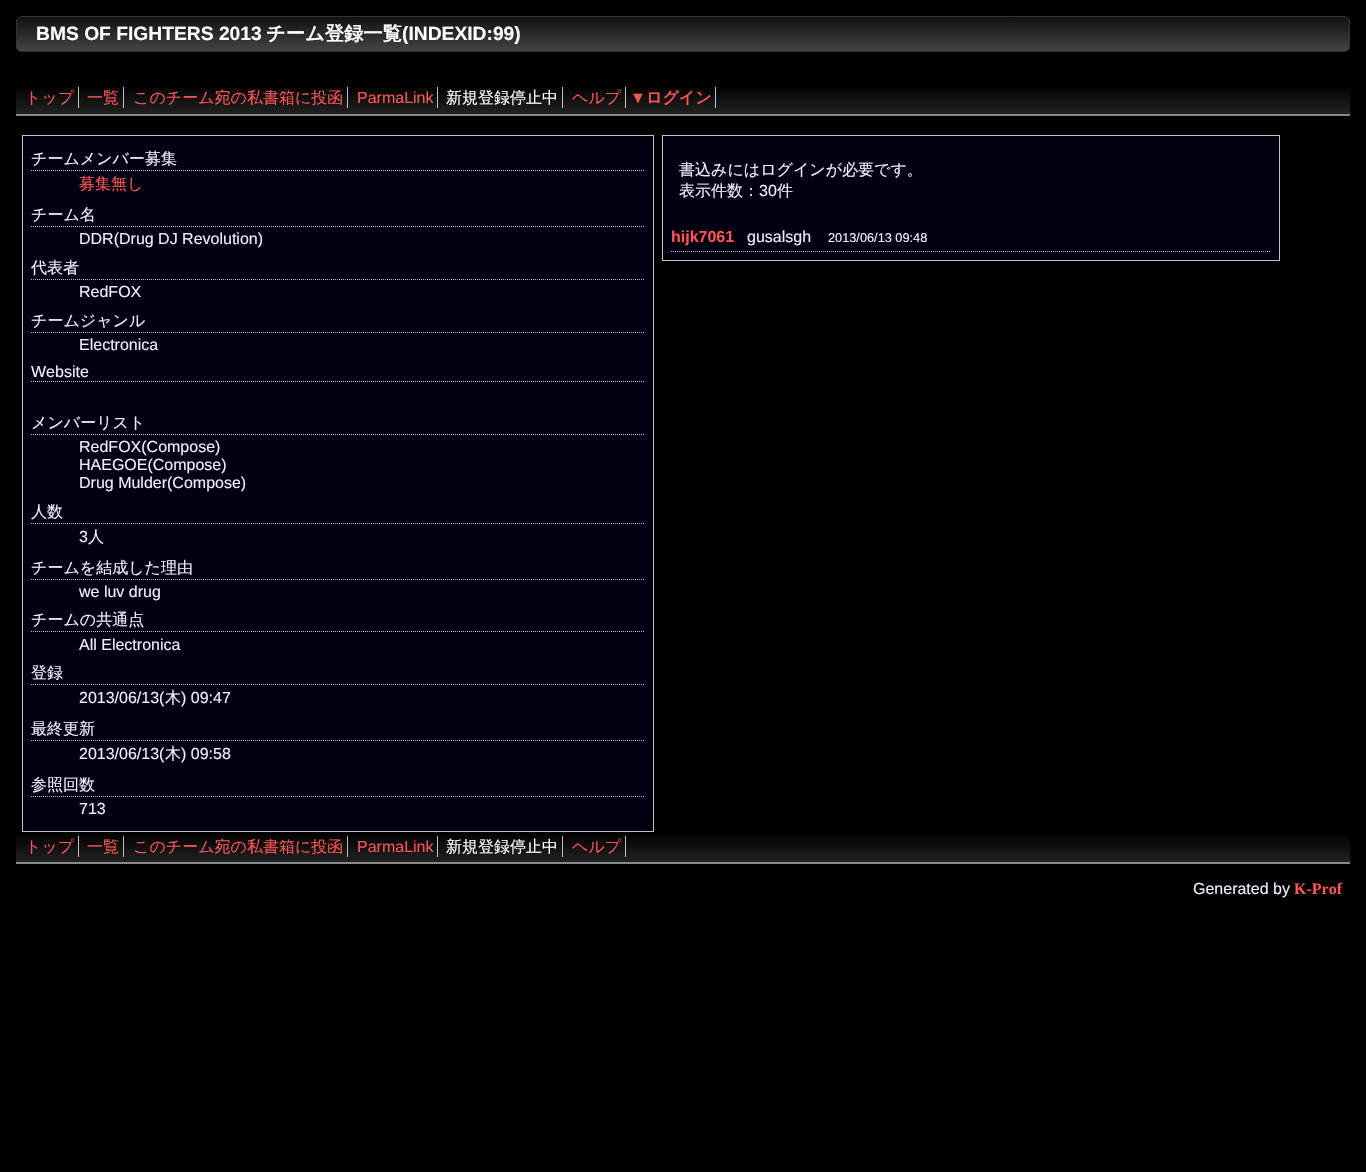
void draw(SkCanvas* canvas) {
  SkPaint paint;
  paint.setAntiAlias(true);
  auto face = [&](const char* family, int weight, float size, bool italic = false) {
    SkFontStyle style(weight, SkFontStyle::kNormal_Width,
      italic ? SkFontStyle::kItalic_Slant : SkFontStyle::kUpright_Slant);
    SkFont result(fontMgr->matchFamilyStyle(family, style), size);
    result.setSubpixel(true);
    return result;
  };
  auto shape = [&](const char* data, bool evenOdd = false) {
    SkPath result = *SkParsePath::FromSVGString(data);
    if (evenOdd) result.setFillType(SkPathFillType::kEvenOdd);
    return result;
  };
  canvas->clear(0xff000000);
  canvas->save();
  canvas->clipPath(shape("M22 16H1344C1347.5 16 1350 18.5 1350 22V46C1350 49.5 1347.5 52 1344 52H22C18.5 52 16 49.5 16 46V22C16 18.5 18.5 16 22 16Z"), true);
  {
    const SkColor colors[] = {0xff111111, 0xff444444};
    const float stops[] = {0, 1};
    const SkPoint ends[] = {{17, 17}, {17, 51}};
    paint.setShader(SkGradientShader::MakeLinear(ends, colors, stops, 2, SkTileMode::kClamp));
    paint.setAlpha(255);
  }
  canvas->drawRect(SkRect::MakeXYWH(16, 17, 1334, 34), paint);
  canvas->restore();
  paint.setStroke(true);
  paint.setStrokeWidth(1);
  paint.setShader(nullptr);
  paint.setColor(0xff333333);
  canvas->drawRoundRect(SkRect::MakeXYWH(16.5f, 16.5f, 1333, 35), 5.5f, 5.5f, paint);
  paint.setStroke(false);
  {
    const SkColor colors[] = {0xff000000, 0xff222222};
    const float stops[] = {0, 1};
    const SkPoint ends[] = {{16, 84}, {16, 114}};
    paint.setShader(SkGradientShader::MakeLinear(ends, colors, stops, 2, SkTileMode::kClamp));
    paint.setAlpha(255);
  }
  canvas->drawRect(SkRect::MakeXYWH(16, 86, 1334, 28), paint);
  paint.setShader(nullptr);
  {
    const struct { float x, y, w, h; SkColor color; } items[] = {
      {16, 114, 1334, 2, 0xff888888},
      {78, 87, 1, 21, 0xffc0c0c0},
      {123, 87, 1, 21, 0xffc0c0c0},
      {347, 87, 1, 21, 0xffc0c0c0},
      {437, 87, 1, 21, 0xffc0c0c0},
      {562, 87, 1, 21, 0xffc0c0c0},
      {625, 87, 1, 21, 0xffc0c0c0},
      {715, 87, 1, 21, 0xffc0c0c0},
    };
    for (auto [x, y, w, h, color] : items) {
      paint.setColor(color);
      canvas->drawRect(SkRect::MakeXYWH(x, y, w, h), paint);
    }
  }
  paint.setColor(0xff000011);
  canvas->drawRect(SkRect::MakeXYWH(22.5f, 135.5f, 631, 696), paint);
  paint.setStroke(true);
  paint.setColor(0xffc0c0c0);
  canvas->drawRect(SkRect::MakeXYWH(22.5f, 135.5f, 631, 696), paint);
  paint.setPathEffect(SkDashPathEffect::Make({{1, 1}}, 0));
  canvas->drawPath(shape("M31 170.5H645"), paint);
  paint.setPathEffect(nullptr);
  paint.setPathEffect(SkDashPathEffect::Make({{1, 1}}, 0));
  canvas->drawPath(shape("M31 226.5H645"), paint);
  paint.setPathEffect(nullptr);
  paint.setPathEffect(SkDashPathEffect::Make({{1, 1}}, 0));
  canvas->drawPath(shape("M31 279.5H645"), paint);
  paint.setPathEffect(nullptr);
  paint.setPathEffect(SkDashPathEffect::Make({{1, 1}}, 0));
  canvas->drawPath(shape("M31 332.5H645"), paint);
  paint.setPathEffect(nullptr);
  paint.setPathEffect(SkDashPathEffect::Make({{1, 1}}, 0));
  canvas->drawPath(shape("M31 381.5H645"), paint);
  paint.setPathEffect(nullptr);
  paint.setPathEffect(SkDashPathEffect::Make({{1, 1}}, 0));
  canvas->drawPath(shape("M31 434.5H645"), paint);
  paint.setPathEffect(nullptr);
  paint.setPathEffect(SkDashPathEffect::Make({{1, 1}}, 0));
  canvas->drawPath(shape("M31 523.5H645"), paint);
  paint.setPathEffect(nullptr);
  paint.setPathEffect(SkDashPathEffect::Make({{1, 1}}, 0));
  canvas->drawPath(shape("M31 579.5H645"), paint);
  paint.setPathEffect(nullptr);
  paint.setPathEffect(SkDashPathEffect::Make({{1, 1}}, 0));
  canvas->drawPath(shape("M31 631.5H645"), paint);
  paint.setPathEffect(nullptr);
  paint.setPathEffect(SkDashPathEffect::Make({{1, 1}}, 0));
  canvas->drawPath(shape("M31 684.5H645"), paint);
  paint.setPathEffect(nullptr);
  paint.setPathEffect(SkDashPathEffect::Make({{1, 1}}, 0));
  canvas->drawPath(shape("M31 740.5H645"), paint);
  paint.setPathEffect(nullptr);
  paint.setPathEffect(SkDashPathEffect::Make({{1, 1}}, 0));
  canvas->drawPath(shape("M31 796.5H645"), paint);
  paint.setPathEffect(nullptr);
  paint.setStroke(false);
  paint.setColor(0xff000011);
  canvas->drawRect(SkRect::MakeXYWH(662.5f, 135.5f, 617, 125), paint);
  paint.setStroke(true);
  paint.setColor(0xffc0c0c0);
  canvas->drawRect(SkRect::MakeXYWH(662.5f, 135.5f, 617, 125), paint);
  paint.setPathEffect(SkDashPathEffect::Make({{1, 1}}, 0));
  canvas->drawPath(shape("M671 251.5H1271"), paint);
  paint.setPathEffect(nullptr);
  paint.setStroke(false);
  {
    const SkColor colors[] = {0xff000000, 0xff222222};
    const float stops[] = {0, 1};
    const SkPoint ends[] = {{16, 832}, {16, 862}};
    paint.setShader(SkGradientShader::MakeLinear(ends, colors, stops, 2, SkTileMode::kClamp));
    paint.setAlpha(255);
  }
  canvas->drawRect(SkRect::MakeXYWH(16, 834, 1334, 28), paint);
  paint.setShader(nullptr);
  {
    const struct { float x, y, w, h; SkColor color; } items[] = {
      {16, 862, 1334, 2, 0xff888888},
      {78, 836, 1, 21, 0xffc0c0c0},
      {123, 836, 1, 21, 0xffc0c0c0},
      {347, 836, 1, 21, 0xffc0c0c0},
      {437, 836, 1, 21, 0xffc0c0c0},
      {562, 836, 1, 21, 0xffc0c0c0},
      {625, 836, 1, 21, 0xffc0c0c0},
    };
    for (auto [x, y, w, h, color] : items) {
      paint.setColor(color);
      canvas->drawRect(SkRect::MakeXYWH(x, y, w, h), paint);
    }
  }
  auto f0 = face("Liberation Sans", 700, 19.25f);
  paint.setColor(0xffffffff);
  canvas->drawString("BMS OF FIGHTERS 2013", 36, 40, f0, paint);
  auto f1 = face("WenQuanYi Zen Hei", 700, 19.25f);
  canvas->drawString("チーム登録一覧", 266, 40, f1, paint);
  canvas->drawString("(INDEXID:99)", 402, 40, f0, paint);
  auto f2 = face("WenQuanYi Zen Hei", 500, 16);
  paint.setColor(0xffff5555);
  {
    const struct { const char* s; float x, y; } items[] = {
      {"トップ", 25, 103},
      {"一覧", 87, 103},
      {"このチーム宛の私書箱に投函", 133, 103},
    };
    for (auto [s, x, y] : items) {
      canvas->drawString(s, x, y, f2, paint);
    }
  }
  auto f3 = face("Liberation Sans", 400, 16);
  canvas->drawString("ParmaLink", 357, 103, f3, paint);
  paint.setColor(0xffffffff);
  canvas->drawString("新規登録停止中", 446, 103, f2, paint);
  paint.setColor(0xffff5555);
  canvas->drawString("ヘルプ", 572, 103, f2, paint);
  auto f4 = face("Liberation Sans", 700, 16);
  canvas->drawString("▼", 630, 103, f4, paint);
  auto f5 = face("WenQuanYi Zen Hei", 700, 16);
  canvas->drawString("ログイン", 646, 103, f5, paint);
  paint.setColor(0xffeeeeff);
  canvas->drawString("チームメンバー募集", 31, 164, f2, paint);
  paint.setColor(0xffff5555);
  canvas->drawString("募集無し", 79, 189, f2, paint);
  paint.setColor(0xffeeeeff);
  canvas->drawString("チーム名", 31, 220, f2, paint);
  canvas->drawString("DDR(Drug DJ Revolution)", 79, 244, f3, paint);
  canvas->drawString("代表者", 31, 273, f2, paint);
  canvas->drawString("RedFOX", 79, 297, f3, paint);
  canvas->drawString("チームジャンル", 31, 326, f2, paint);
  canvas->drawString("Electronica", 79, 350, f3, paint);
  canvas->drawString("Website", 31, 377, f3, paint);
  canvas->drawString("メンバーリスト", 31, 428, f2, paint);
  {
    const struct { const char* s; float x, y; } items[] = {
      {"RedFOX(Compose)", 79, 452},
      {"HAEGOE(Compose)", 79, 470},
      {"Drug Mulder(Compose)", 79, 488},
    };
    for (auto [s, x, y] : items) {
      canvas->drawString(s, x, y, f3, paint);
    }
  }
  canvas->drawString("人数", 31, 517, f2, paint);
  canvas->drawString("3", 79, 542, f3, paint);
  canvas->drawString("人", 88, 542, f2, paint);
  canvas->drawString("チームを結成した理由", 31, 573, f2, paint);
  canvas->drawString("we luv drug", 79, 597, f3, paint);
  canvas->drawString("チームの共通点", 31, 625, f2, paint);
  canvas->drawString("All Electronica", 79, 650, f3, paint);
  canvas->drawString("登録", 31, 678, f2, paint);
  canvas->drawString("2013/06/13(", 79, 703, f3, paint);
  canvas->drawString("木", 165, 703, f2, paint);
  canvas->drawString(") 09:47", 181, 703, f3, paint);
  canvas->drawString("最終更新", 31, 734, f2, paint);
  canvas->drawString("2013/06/13(", 79, 759, f3, paint);
  canvas->drawString("木", 165, 759, f2, paint);
  canvas->drawString(") 09:58", 181, 759, f3, paint);
  canvas->drawString("参照回数", 31, 790, f2, paint);
  canvas->drawString("713", 79, 814, f3, paint);
  canvas->drawString("書込みにはログインが必要です。", 679, 175, f2, paint);
  canvas->drawString("表示件数：", 679, 196, f2, paint);
  canvas->drawString("30", 759, 196, f3, paint);
  canvas->drawString("件", 777, 196, f2, paint);
  paint.setColor(0xffff5555);
  canvas->drawString("hijk7061", 671, 242, f4, paint);
  paint.setColor(0xffeeeeff);
  canvas->drawString("gusalsgh", 747, 242, f3, paint);
  auto f6 = face("Liberation Sans", 400, 12.75f);
  canvas->drawString("2013/06/13 09:48", 828, 242, f6, paint);
  paint.setColor(0xffff5555);
  {
    const struct { const char* s; float x, y; } items[] = {
      {"トップ", 25, 852},
      {"一覧", 87, 852},
      {"このチーム宛の私書箱に投函", 133, 852},
    };
    for (auto [s, x, y] : items) {
      canvas->drawString(s, x, y, f2, paint);
    }
  }
  canvas->drawString("ParmaLink", 357, 852, f3, paint);
  paint.setColor(0xffffffff);
  canvas->drawString("新規登録停止中", 446, 852, f2, paint);
  paint.setColor(0xffff5555);
  canvas->drawString("ヘルプ", 572, 852, f2, paint);
  paint.setColor(0xffeeeeff);
  canvas->drawString("Generated by", 1193, 894, f3, paint);
  auto f7 = face("Liberation Serif", 700, 16);
  paint.setColor(0xffff5555);
  canvas->drawString("K-Prof", 1294, 894, f7, paint);
}
